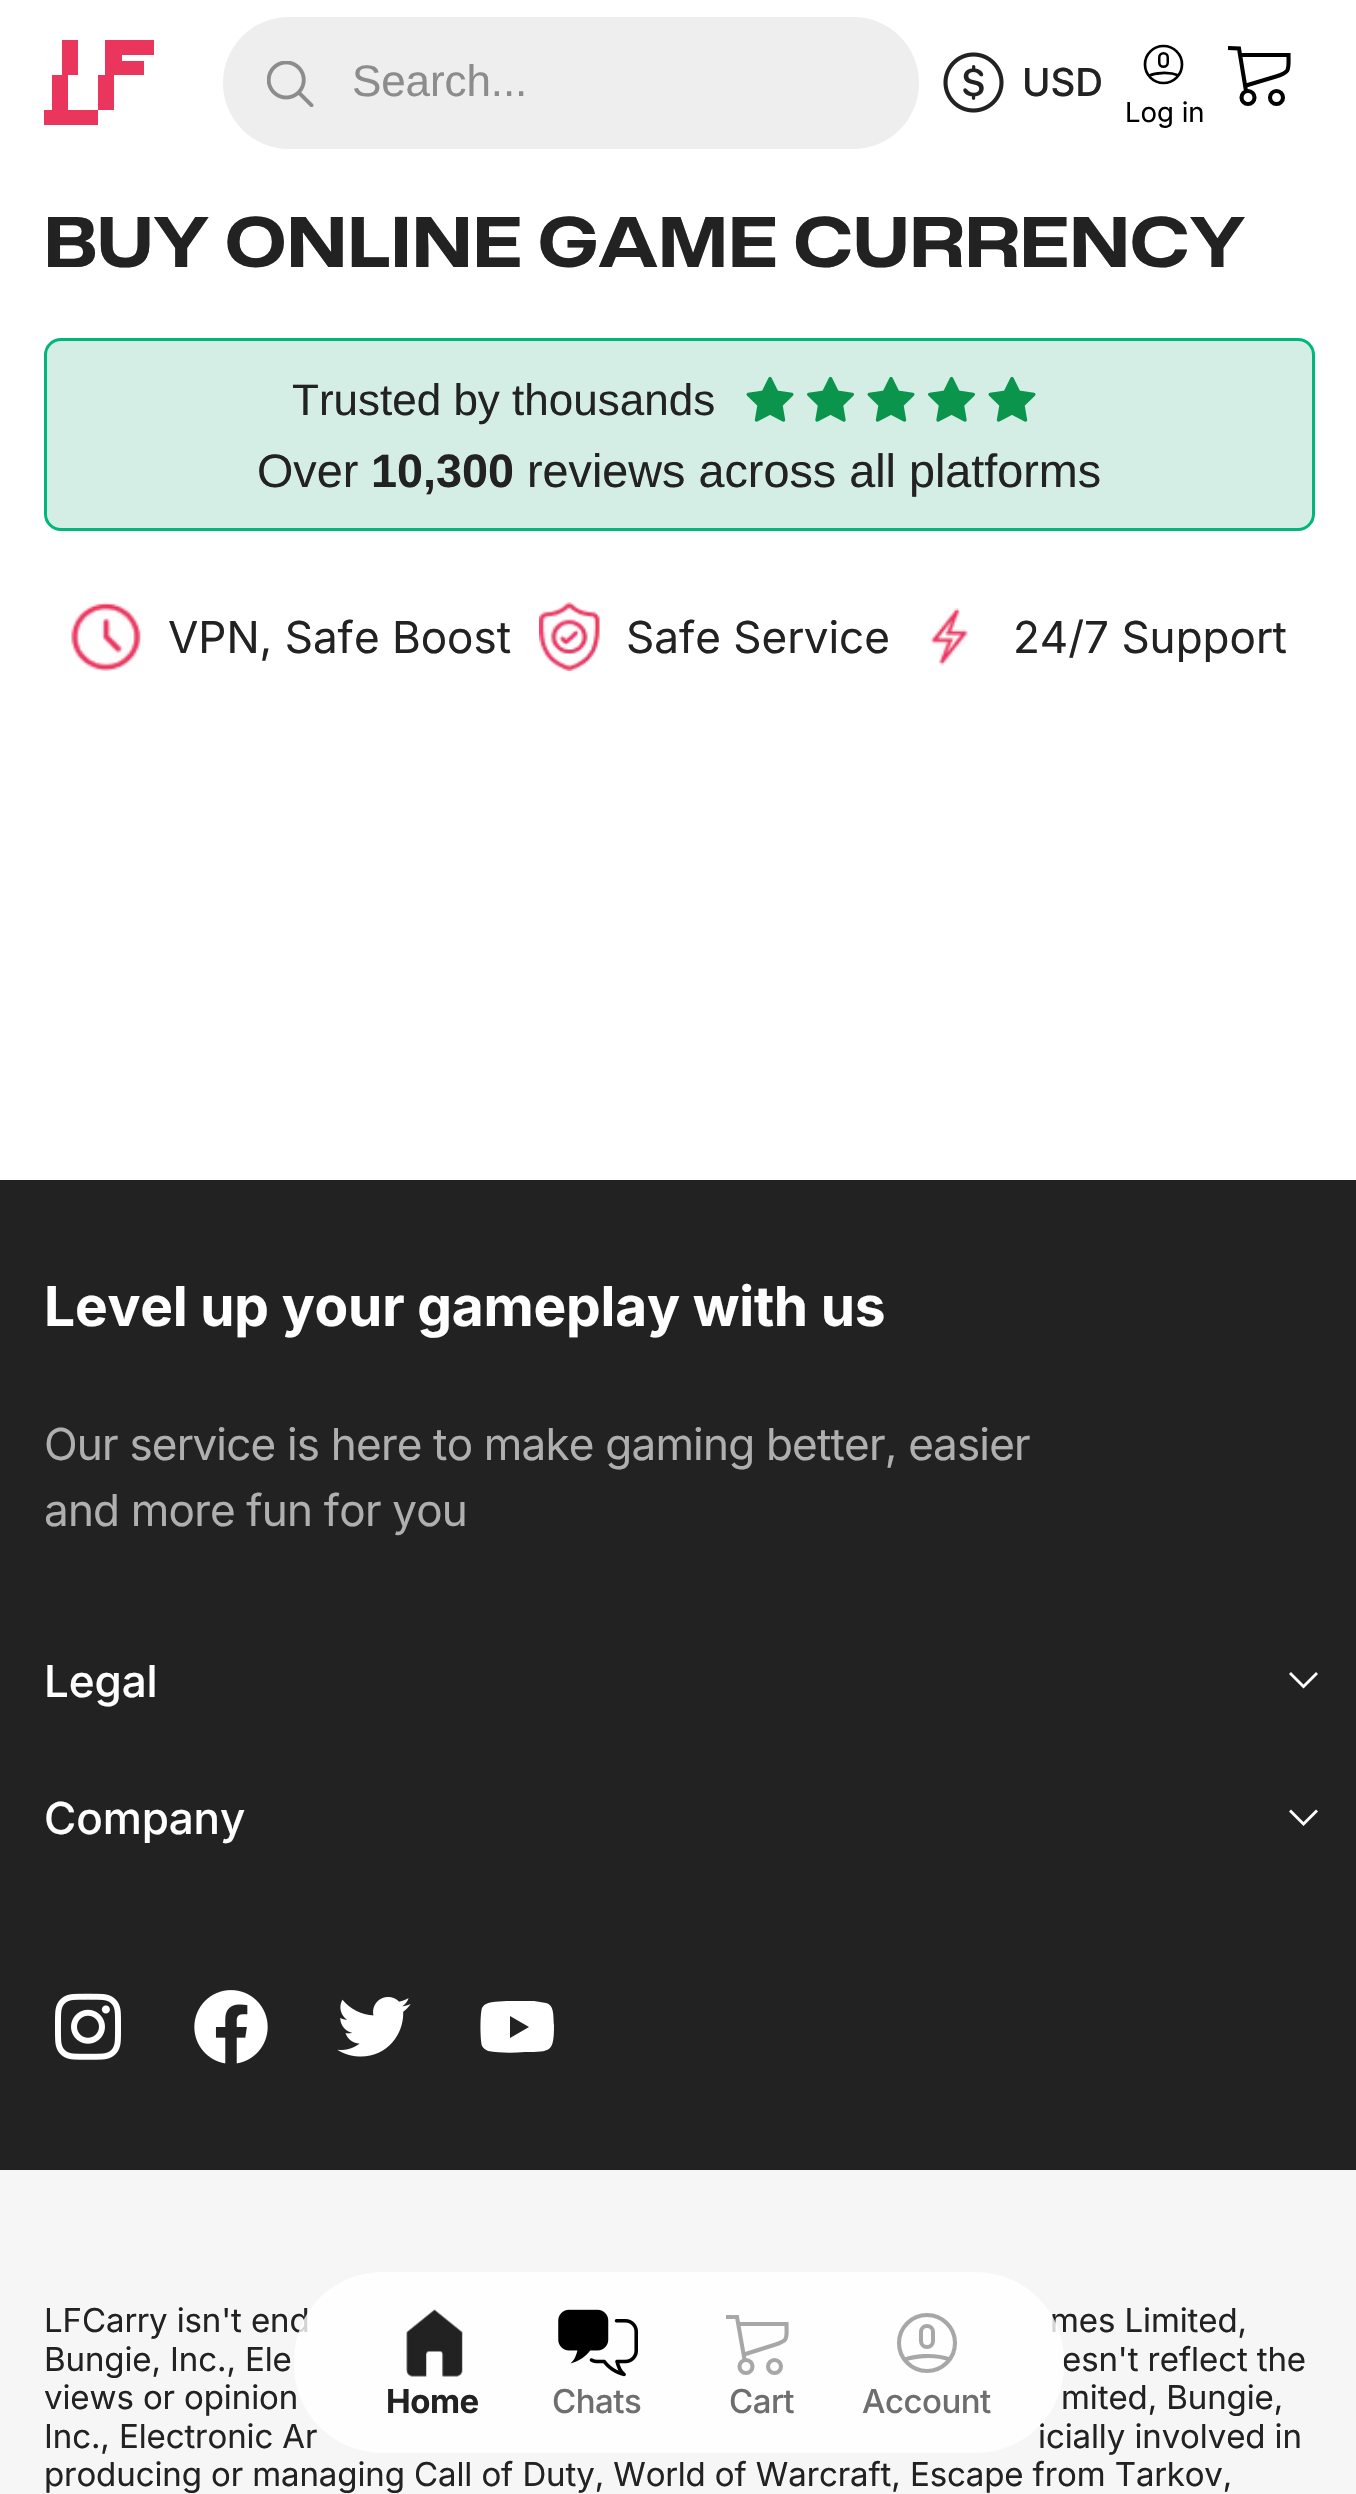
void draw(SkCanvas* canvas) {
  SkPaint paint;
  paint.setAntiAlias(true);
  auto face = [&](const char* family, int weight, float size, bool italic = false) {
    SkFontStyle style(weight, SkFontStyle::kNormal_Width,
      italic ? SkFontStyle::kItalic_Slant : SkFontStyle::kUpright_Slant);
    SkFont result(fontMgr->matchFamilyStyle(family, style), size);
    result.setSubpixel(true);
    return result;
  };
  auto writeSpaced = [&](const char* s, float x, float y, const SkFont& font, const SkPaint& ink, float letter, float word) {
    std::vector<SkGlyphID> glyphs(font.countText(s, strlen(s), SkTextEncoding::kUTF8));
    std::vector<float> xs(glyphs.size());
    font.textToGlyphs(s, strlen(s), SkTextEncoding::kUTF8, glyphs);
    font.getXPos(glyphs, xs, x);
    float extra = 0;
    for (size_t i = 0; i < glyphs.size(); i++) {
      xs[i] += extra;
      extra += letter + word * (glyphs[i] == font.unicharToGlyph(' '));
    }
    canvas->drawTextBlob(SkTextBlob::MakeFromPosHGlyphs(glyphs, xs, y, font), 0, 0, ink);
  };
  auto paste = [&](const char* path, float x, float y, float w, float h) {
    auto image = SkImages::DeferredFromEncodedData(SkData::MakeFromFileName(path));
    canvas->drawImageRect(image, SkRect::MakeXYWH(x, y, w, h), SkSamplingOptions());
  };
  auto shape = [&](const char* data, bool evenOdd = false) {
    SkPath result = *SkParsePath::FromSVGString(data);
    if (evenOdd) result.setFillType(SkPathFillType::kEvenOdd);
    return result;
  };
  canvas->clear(0xffffffff);
  paint.setColor(0xffea355d);
  canvas->drawPath(shape("M154 40V55H122V61H105V40Z"), paint);
  canvas->drawPath(shape("M44 110H52V75H68V110H98V125H44Z"), paint);
  canvas->drawPath(shape("M144 61H105V75H98V110H114V75H144Z"), paint);
  canvas->drawRect(SkRect::MakeXYWH(62, 40, 16, 35), paint);
  paint.setColor(0xffeeeeee);
  canvas->drawRoundRect(SkRect::MakeXYWH(223, 17, 696, 132), 66, 66, paint);
  paste("img/1.png", 267, 61, 47, 46);
  paste("img/2.png", 943, 52, 61, 61);
  paint.setStroke(true);
  paint.setStrokeWidth(4.1f);
  paint.setColor(0xff000000);
  canvas->drawPath(shape("M1240 55H1288.5C1288.5 69.5 1290.5 72 1276 76.5L1246 85.5"), paint);
  canvas->drawPath(shape("M1228 48L1239 48.5L1246 91"), paint);
  canvas->drawCircle(1248, 97.5f, 6.5f, paint);
  canvas->drawCircle(1276.5f, 97.5f, 6.5f, paint);
  paint.setStrokeWidth(2.7f);
  canvas->drawCircle(1163.5f, 64.5f, 18.5f, paint);
  paint.setStrokeWidth(2.5f);
  canvas->drawRoundRect(SkRect::MakeXYWH(1159.25f, 53.25f, 8.5f, 13.5f), 4.25f, 4.25f, paint);
  paint.setStrokeWidth(2.7f);
  canvas->drawPath(shape("M1149.5 75.5C1154 73.5 1167 71 1179 75.5"), paint);
  paint.setStroke(false);
  paint.setColor(0xffd5eee5);
  canvas->drawRoundRect(SkRect::MakeXYWH(45.5f, 339.5f, 1268, 190), 15.5f, 15.5f, paint);
  paint.setStroke(true);
  paint.setStrokeWidth(3);
  paint.setColor(0xff00b67a);
  canvas->drawRoundRect(SkRect::MakeXYWH(45.5f, 339.5f, 1268, 190), 15.5f, 15.5f, paint);
  paste("img/3.png", 746, 376, 290, 46);
  paste("img/4.png", 71, 602, 70, 69);
  paste("img/5.png", 539, 602, 61, 69);
  paste("img/6.png", 930, 608, 38, 58);
  paint.setStroke(false);
  paint.setColor(0xff222222);
  canvas->drawRect(SkRect::MakeXYWH(0, 1180, 1356, 990), paint);
  paint.setColor(0xffffffff);
  canvas->drawPath(shape("M1318 1674L1316 1672L1303.5 1684.5L1291 1672L1289 1674L1303.5 1688.5Z"), paint);
  canvas->drawPath(shape("M1318 1811.5L1316 1809.5L1303.5 1822L1291 1809.5L1289 1811.5L1303.5 1826Z"), paint);
  paste("img/7.png", 55, 1993, 66, 67);
  paste("img/8.png", 194, 1990, 74, 74);
  paste("img/9.png", 337, 1997, 74, 60);
  canvas->drawPath(shape("M546 2003C555 2005 553 2018 554 2025C554 2052 551 2052 525 2052C513 2053 499 2053 488 2051C486 2050 483 2048 482 2046C480 2039 480 2014 482 2008C483 2006 484 2005 486 2004C491 2001 507 2001 513 2001H534ZM529 2027L510 2038V2016Z", true), paint);
  paint.setColor(0xfff6f6f6);
  canvas->drawRect(SkRect::MakeXYWH(0, 2170, 1356, 324), paint);
  auto f0 = face("Liberation Sans", 400, 44);
  paint.setColor(0xff8c8c8c);
  writeSpaced("Search...", 352, 96, f0, paint, -0.1f, 0);
  auto f1 = face("Inter", 500, 38.5f);
  paint.setColor(0xff222222);
  canvas->drawString("USD", 1022, 96, f1, paint);
  auto f2 = face("Inter", 400, 27.5f);
  paint.setColor(0xff000000);
  canvas->drawString("Log in", 1125, 122, f2, paint);
  auto f3 = face("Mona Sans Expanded", 700, 68.75f);
  paint.setColor(0xff222222);
  writeSpaced("BUY ONLINE GAME CURRENCY", 44, 267, f3, paint, 1.1f, 0);
  canvas->drawString("Trusted by thousands", 292, 415, f0, paint);
  auto f4 = face("Liberation Sans", 400, 46.75f);
  canvas->drawString("Over", 257, 487, f4, paint);
  auto f5 = face("Liberation Sans", 700, 46.75f);
  canvas->drawString("10,300", 371, 487, f5, paint);
  canvas->drawString("reviews across all platforms", 527, 487, f4, paint);
  auto f6 = face("Inter", 400, 44);
  {
    const struct { const char* s; float x, y; } items[] = {
      {"VPN, Safe Boost", 168, 653},
      {"Safe Service", 626, 653},
      {"24/7 Support", 1013, 653},
    };
    for (auto [s, x, y] : items) {
      canvas->drawString(s, x, y, f6, paint);
    }
  }
  auto f7 = face("Inter", 700, 55);
  paint.setColor(0xffffffff);
  writeSpaced("Level up your gameplay with us", 44, 1326, f7, paint, -0.2f, 0);
  paint.setColor(0xffafafaf);
  writeSpaced("Our service is here to make gaming better, easier", 44, 1460, f6, paint, -0.8f, 0);
  writeSpaced("and more fun for you", 44, 1526, f6, paint, -0.8f, 0);
  auto f8 = face("Inter", 500, 44);
  paint.setColor(0xffffffff);
  writeSpaced("Legal", 44, 1697, f8, paint, -0.1f, 0);
  writeSpaced("Company", 44, 1834, f8, paint, -0.1f, 0);
  auto f9 = face("Inter", 400, 33);
  paint.setColor(0xff222222);
  {
    const struct { const char* s; float x, y; } items[] = {
      {"LFCarry isn't end", 44, 2332},
      {"mes Limited,", 1050, 2332},
      {"Bungie, Inc., Ele", 44, 2371},
      {"esn't reflect the", 1062, 2371},
      {"views or opinion", 44, 2409},
      {"mited, Bungie,", 1061, 2409},
      {"Inc., Electronic Ar", 44, 2448},
      {"icially involved in", 1038, 2448},
      {"producing or managing Call of Duty, World of Warcraft, Escape from Tarkov,", 44, 2486},
    };
    for (auto [s, x, y] : items) {
      writeSpaced(s, x, y, f9, paint, -0.1f, 0);
    }
  }
  paint.setColor(0xccffffff);
  canvas->drawRoundRect(SkRect::MakeXYWH(294, 2272, 770, 181), 88, 88, paint);
  paste("img/10.png", 406, 2309, 57, 68);
  auto f10 = face("Inter", 700, 33);
  paint.setColor(0xff222222);
  writeSpaced("Home", 386, 2413, f10, paint, -0.5f, 0);
  paste("img/11.png", 558, 2309, 80, 68);
  auto f11 = face("Inter", 500, 33);
  paint.setColor(0xff6e6e6e);
  writeSpaced("Chats", 552, 2413, f11, paint, -0.5f, 0);
  paint.setStroke(true);
  paint.setStrokeWidth(4.1f);
  paint.setColor(0xffa7a7a7);
  canvas->drawPath(shape("M738 2324H786.5C786.5 2338.5 789 2340.5 774 2345L744 2354.5M726 2317H737L744.5 2359.5"), paint);
  canvas->drawCircle(746, 2366.5f, 6.5f, paint);
  canvas->drawCircle(774.5f, 2366.5f, 6.5f, paint);
  paint.setStroke(false);
  paint.setColor(0xff6e6e6e);
  writeSpaced("Cart", 729, 2413, f11, paint, -0.5f, 0);
  paint.setStroke(true);
  paint.setColor(0xffa7a7a7);
  canvas->drawCircle(927, 2343, 28, paint);
  paint.setStrokeWidth(4);
  canvas->drawRoundRect(SkRect::MakeXYWH(921, 2326, 12, 21), 6, 6, paint);
  paint.setStrokeWidth(4.1f);
  canvas->drawPath(shape("M905 2359.5C912 2357 931.5 2353 950 2359.5"), paint);
  paint.setStroke(false);
  paint.setColor(0xff6e6e6e);
  writeSpaced("Account", 862, 2413, f11, paint, -0.5f, 0);
}
